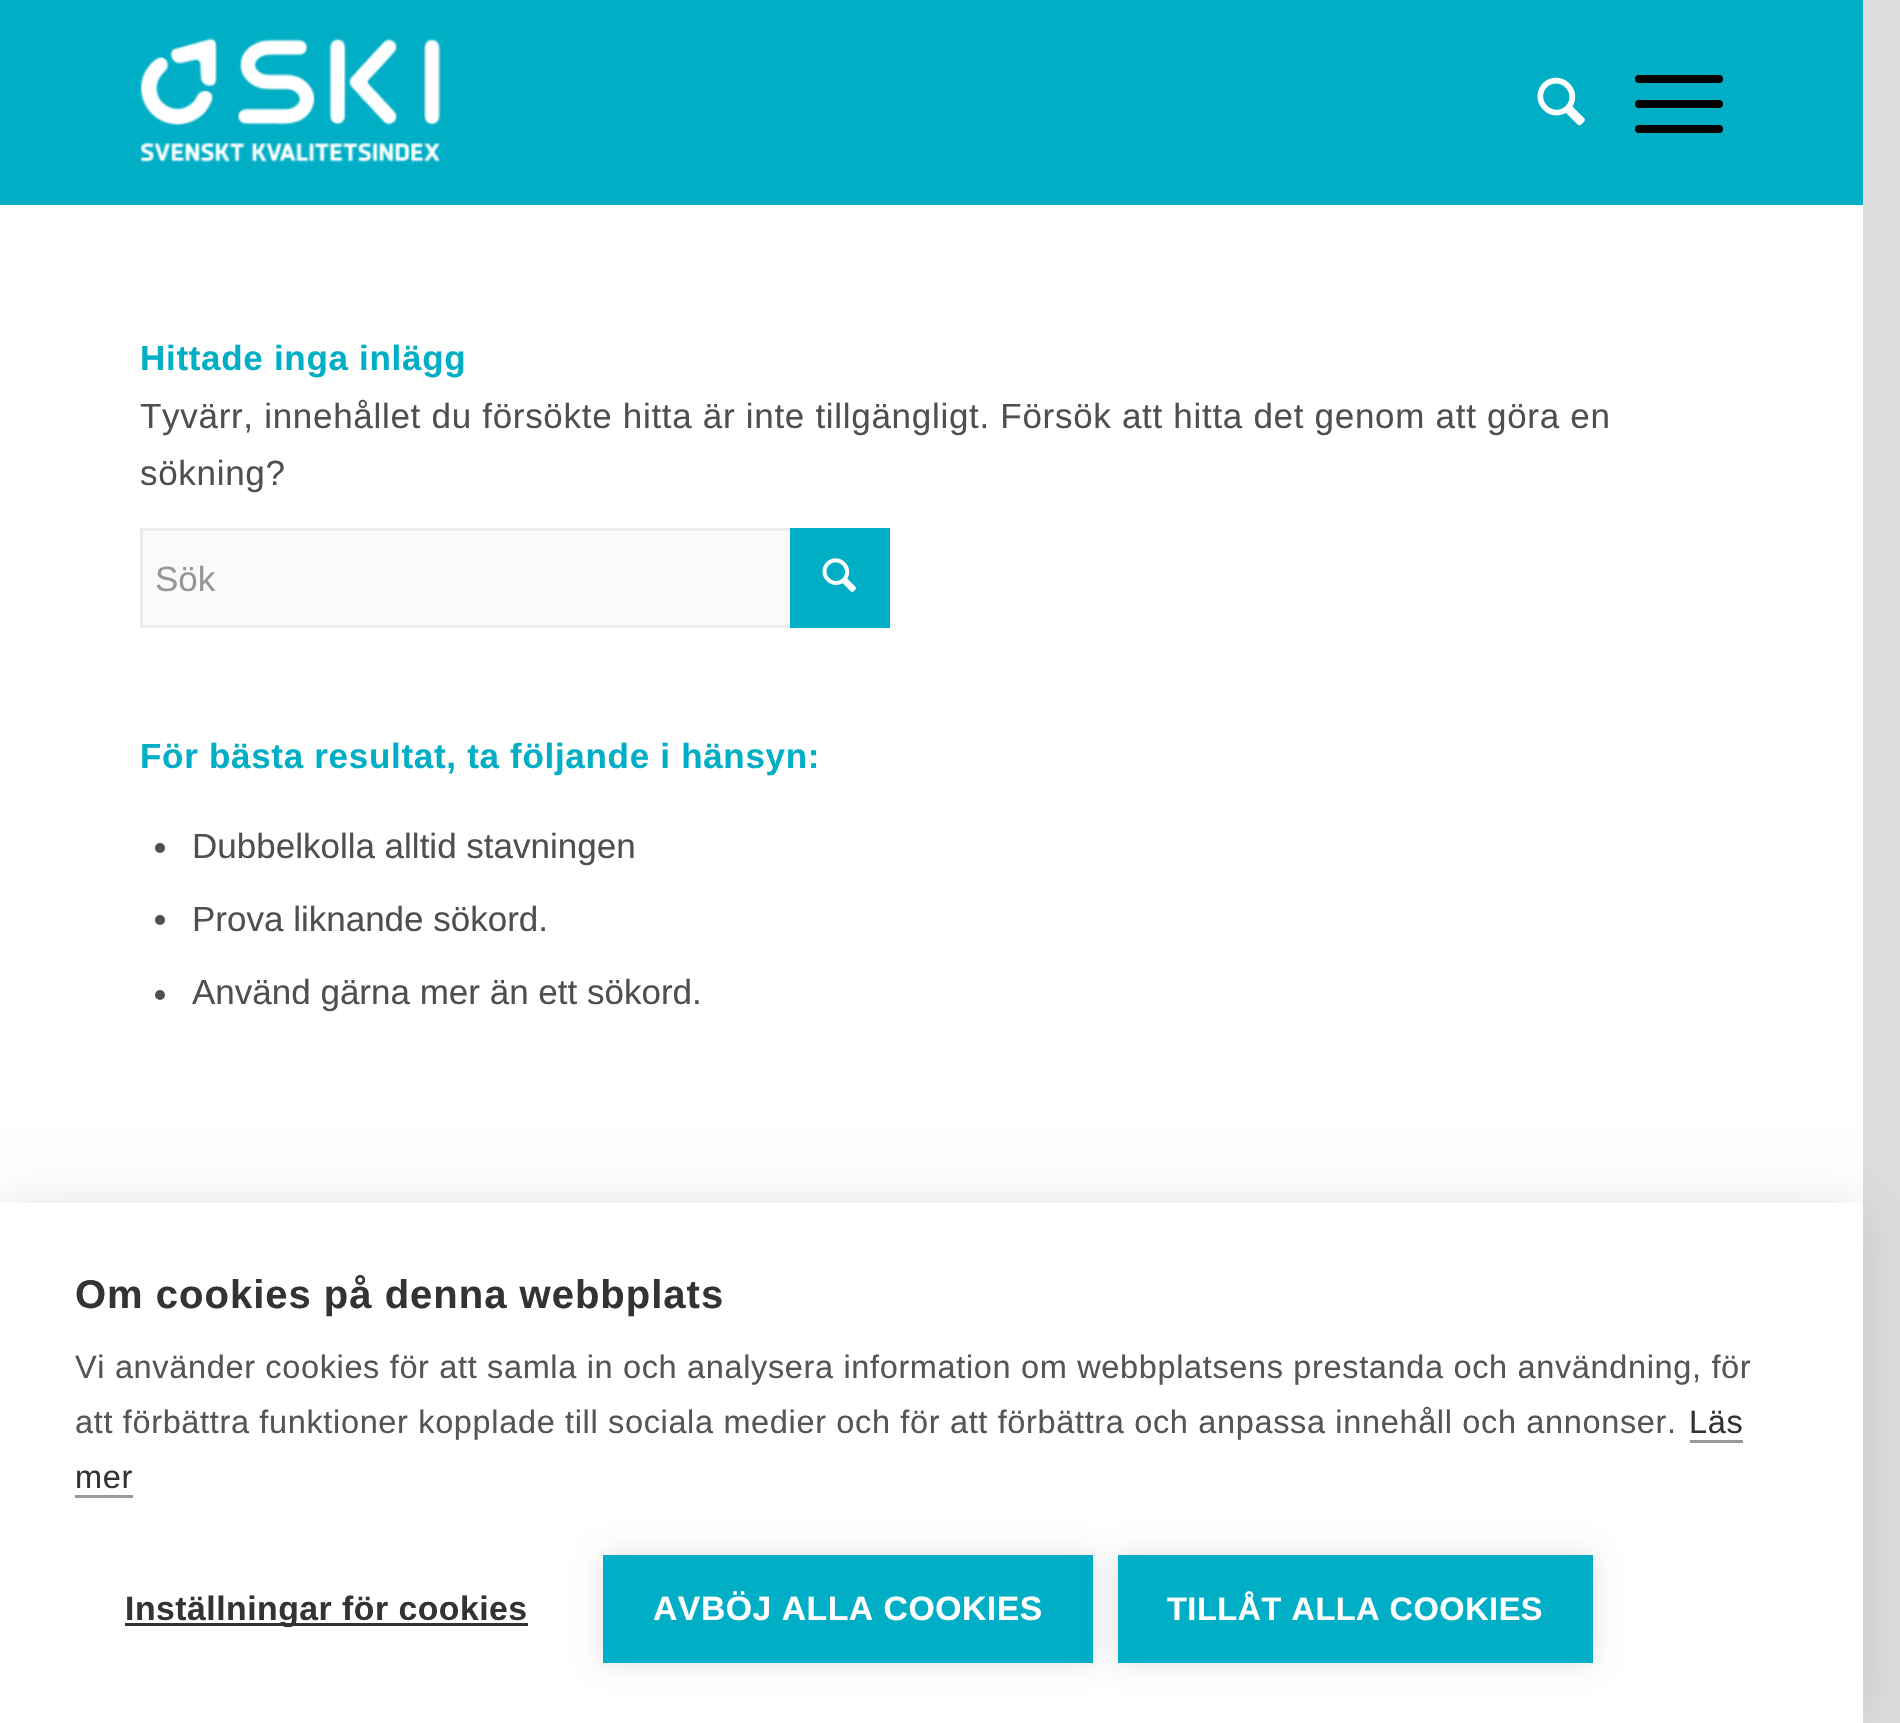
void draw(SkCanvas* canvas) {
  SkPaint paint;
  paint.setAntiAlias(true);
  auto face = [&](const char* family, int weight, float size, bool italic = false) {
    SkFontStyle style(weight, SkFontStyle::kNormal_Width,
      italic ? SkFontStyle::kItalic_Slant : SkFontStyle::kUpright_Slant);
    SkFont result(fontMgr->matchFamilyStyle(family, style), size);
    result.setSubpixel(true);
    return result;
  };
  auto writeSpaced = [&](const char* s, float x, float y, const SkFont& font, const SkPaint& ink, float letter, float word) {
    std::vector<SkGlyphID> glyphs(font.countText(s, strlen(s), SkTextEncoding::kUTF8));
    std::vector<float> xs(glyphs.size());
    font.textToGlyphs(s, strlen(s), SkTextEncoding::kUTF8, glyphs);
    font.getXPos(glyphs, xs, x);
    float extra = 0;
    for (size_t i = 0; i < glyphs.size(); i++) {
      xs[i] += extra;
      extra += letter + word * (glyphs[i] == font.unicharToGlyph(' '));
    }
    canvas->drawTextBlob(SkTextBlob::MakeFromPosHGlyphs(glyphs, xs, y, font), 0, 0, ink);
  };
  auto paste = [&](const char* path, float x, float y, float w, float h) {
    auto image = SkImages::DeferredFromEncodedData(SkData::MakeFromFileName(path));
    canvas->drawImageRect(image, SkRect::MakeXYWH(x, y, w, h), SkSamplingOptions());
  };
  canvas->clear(0xffdddddd);
  paint.setColor(0xff00aec5);
  canvas->drawRect(SkRect::MakeXYWH(0, 0, 1863, 205), paint);
  paste("img/1.png", 140, 37, 301, 126);
  paste("img/2.png", 1537, 77, 48, 49);
  paint.setColor(0xff000000);
  canvas->drawRoundRect(SkRect::MakeXYWH(1635, 100, 88, 8), 4, 4, paint);
  canvas->drawRoundRect(SkRect::MakeXYWH(1635, 75, 88, 8), 4, 4, paint);
  canvas->drawRoundRect(SkRect::MakeXYWH(1635, 125, 88, 8), 4, 4, paint);
  paint.setColor(0xffffffff);
  canvas->drawRect(SkRect::MakeXYWH(0, 205, 1863, 998), paint);
  paint.setColor(0xfffafafa);
  canvas->drawRect(SkRect::MakeXYWH(143, 531, 647, 94), paint);
  paint.setStroke(true);
  paint.setStrokeWidth(3);
  paint.setColor(0xffebebeb);
  canvas->drawRect(SkRect::MakeXYWH(141.5f, 529.5f, 747, 97), paint);
  paint.setStroke(false);
  paint.setColor(0xff00aec5);
  canvas->drawRect(SkRect::MakeXYWH(790, 528, 100, 100), paint);
  paste("img/3.png", 822, 558, 34, 34);
  paint.setColor(0xff4f4f4f);
  canvas->drawCircle(160, 848, 5, paint);
  canvas->drawCircle(160, 920, 5, paint);
  canvas->drawCircle(160, 995, 5, paint);
  paint.setColor(0x1a000000);
  paint.setMaskFilter(SkMaskFilter::MakeBlur(kNormal_SkBlurStyle, 25));
  canvas->drawRect(SkRect::MakeXYWH(0, 1203, 1863, 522), paint);
  paint.setMaskFilter(nullptr);
  {
    const struct { float x, y, w, h; SkColor color; } items[] = {
      {0, 1203, 1863, 520, 0xffffffff},
      {1690, 1440, 53, 3, 0xff999999},
      {75, 1495, 58, 3, 0xff999999},
      {125, 1623, 403, 3, 0xff333333},
    };
    for (auto [x, y, w, h, color] : items) {
      paint.setColor(color);
      canvas->drawRect(SkRect::MakeXYWH(x, y, w, h), paint);
    }
  }
  paint.setColor(0x1f000000);
  paint.setMaskFilter(SkMaskFilter::MakeBlur(kNormal_SkBlurStyle, 12.5f));
  canvas->drawRect(SkRect::MakeXYWH(603, 1555, 490, 108), paint);
  paint.setMaskFilter(nullptr);
  paint.setColor(0xff00aec5);
  canvas->drawRect(SkRect::MakeXYWH(603, 1555, 490, 108), paint);
  paint.setColor(0x1f000000);
  paint.setMaskFilter(SkMaskFilter::MakeBlur(kNormal_SkBlurStyle, 12.5f));
  canvas->drawRect(SkRect::MakeXYWH(1118, 1555, 475, 108), paint);
  paint.setMaskFilter(nullptr);
  paint.setColor(0xff00aec5);
  canvas->drawRect(SkRect::MakeXYWH(1118, 1555, 475, 108), paint);
  auto f0 = face("Liberation Sans", 700, 35);
  writeSpaced("Hittade inga inlägg", 140, 370, f0, paint, 0.7f, 0);
  auto f1 = face("Liberation Sans", 400, 35);
  paint.setColor(0xff4f4f4f);
  writeSpaced("Tyvärr, innehållet du försökte hitta är inte tillgängligt. Försök att hitta det genom att göra en", 140, 428, f1, paint, 0.7f, 0);
  writeSpaced("sökning?", 140, 485, f1, paint, 0.7f, 0);
  paint.setColor(0xff969696);
  canvas->drawString("Sök", 155, 591, f1, paint);
  paint.setColor(0xff00aec5);
  writeSpaced("För bästa resultat, ta följande i hänsyn:", 140, 768, f0, paint, 0.7f, 0);
  paint.setColor(0xff4f4f4f);
  {
    const struct { const char* s; float x, y; } items[] = {
      {"Dubbelkolla alltid stavningen", 192, 858},
      {"Prova liknande sökord.", 192, 931},
      {"Använd gärna mer än ett sökord.", 192, 1004},
    };
    for (auto [s, x, y] : items) {
      canvas->drawString(s, x, y, f1, paint);
    }
  }
  auto f2 = face("Liberation Sans", 700, 40);
  paint.setColor(0xff333333);
  writeSpaced("Om cookies på denna webbplats", 75, 1308, f2, paint, 1, 0);
  auto f3 = face("Liberation Sans", 400, 32.5f);
  paint.setColor(0xff555555);
  writeSpaced("Vi använder cookies för att samla in och analysera information om webbplatsens prestanda och användning, för", 75, 1378, f3, paint, 0.65f, 0);
  writeSpaced("att förbättra funktioner kopplade till sociala medier och för att förbättra och anpassa innehåll och annonser.", 75, 1433, f3, paint, 0.65f, 0);
  paint.setColor(0xff333333);
  writeSpaced("Läs", 1689, 1433, f3, paint, 0.65f, 0);
  writeSpaced("mer", 75, 1488, f3, paint, 0.65f, 0);
  auto f4 = face("Liberation Sans", 700, 33.75f);
  writeSpaced("Inställningar för cookies", 125, 1620, f4, paint, 0.5f, 0);
  paint.setColor(0xffffffff);
  writeSpaced("AVBÖJ ALLA COOKIES", 653, 1620, f4, paint, 0.5f, 0);
  auto f5 = face("Liberation Sans", 700, 32.5f);
  writeSpaced("TILLÅT ALLA COOKIES", 1167, 1620, f5, paint, 0.5f, 0);
}
